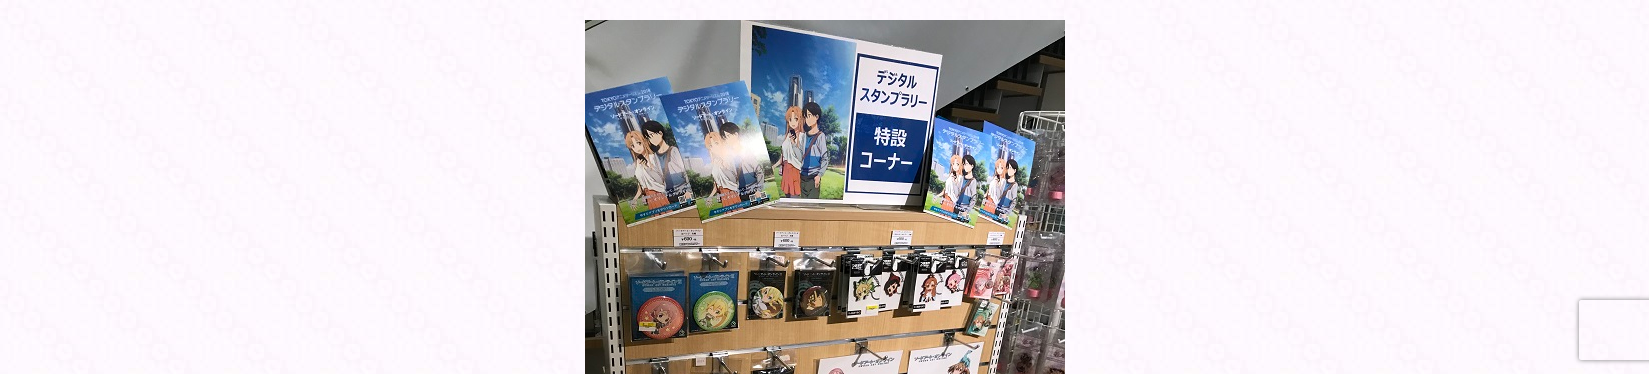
void draw(SkCanvas* canvas) {
  SkPaint paint;
  paint.setAntiAlias(true);
  auto paste = [&](const char* path, float x, float y, float w, float h) {
    auto image = SkImages::DeferredFromEncodedData(SkData::MakeFromFileName(path));
    canvas->drawImageRect(image, SkRect::MakeXYWH(x, y, w, h), SkSamplingOptions());
  };
  auto shape = [&](const char* data, bool evenOdd = false) {
    SkPath result = *SkParsePath::FromSVGString(data);
    if (evenOdd) result.setFillType(SkPathFillType::kEvenOdd);
    return result;
  };
  canvas->clear(0xffffffff);
  paste("img/1.png", 0, 0, 1649, 374);
  paste("img/2.png", 585, 20, 480, 354);
  canvas->save();
  canvas->clipPath(shape("M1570 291H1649V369H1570ZM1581 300H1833C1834 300 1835 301 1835 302V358C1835 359 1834 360 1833 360H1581C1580 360 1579 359 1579 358V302C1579 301 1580 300 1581 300Z", true), true);
  paint.setColor(0xff808080);
  paint.setMaskFilter(SkMaskFilter::MakeBlur(kNormal_SkBlurStyle, 2.5f));
  canvas->drawRoundRect(SkRect::MakeXYWH(1579, 300, 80, 60), 2, 2, paint);
  paint.setMaskFilter(nullptr);
  canvas->restore();
}
